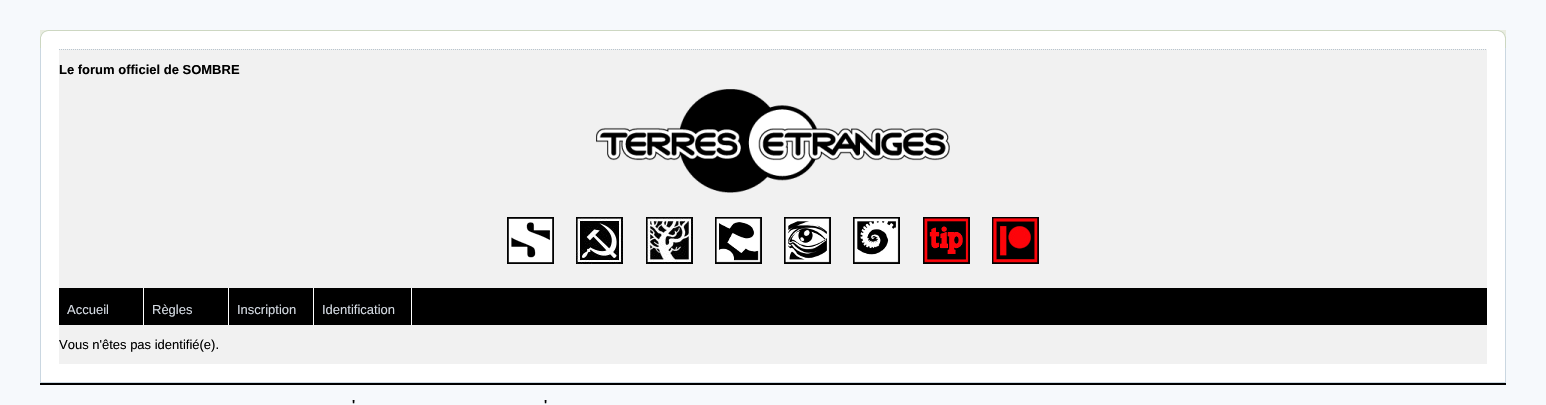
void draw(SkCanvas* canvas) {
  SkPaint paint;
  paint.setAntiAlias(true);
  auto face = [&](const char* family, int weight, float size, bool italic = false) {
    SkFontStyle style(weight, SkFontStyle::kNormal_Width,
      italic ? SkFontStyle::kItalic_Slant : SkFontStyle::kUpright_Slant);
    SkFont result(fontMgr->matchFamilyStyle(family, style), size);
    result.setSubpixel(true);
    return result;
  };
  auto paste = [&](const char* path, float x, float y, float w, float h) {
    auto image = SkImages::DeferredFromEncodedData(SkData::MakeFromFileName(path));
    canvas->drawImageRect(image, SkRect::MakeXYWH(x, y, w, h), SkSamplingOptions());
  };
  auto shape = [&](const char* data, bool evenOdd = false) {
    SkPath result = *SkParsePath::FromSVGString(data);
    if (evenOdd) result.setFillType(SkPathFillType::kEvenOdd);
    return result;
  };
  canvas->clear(0xfff6f9fc);
  paint.setColor(0xffffffff);
  canvas->drawRect(SkRect::MakeXYWH(41, 48, 1464, 334), paint);
  paint.setStroke(true);
  paint.setStrokeWidth(1);
  paint.setColor(0xffcad7e1);
  canvas->drawRect(SkRect::MakeXYWH(40.5f, 30.5f, 1465, 352), paint);
  paste("img/1.png", 40, 30, 1458, 18);
  paste("img/2.png", 1498, 30, 8, 18);
  paint.setStroke(false);
  paint.setColor(0xfff1f1f1);
  canvas->drawRect(SkRect::MakeXYWH(59, 49, 1428, 315), paint);
  paint.setStroke(true);
  paint.setColor(0xffb9c5ce);
  paint.setPathEffect(SkDashPathEffect::Make({{1, 1}}, 0));
  canvas->drawPath(shape("M59 49.5H1487"), paint);
  paint.setPathEffect(nullptr);
  paste("img/3.png", 596, 89, 354, 104);
  paste("img/4.png", 507, 217, 47, 47);
  paste("img/5.png", 576, 217, 47, 47);
  paste("img/6.png", 646, 217, 47, 47);
  paste("img/7.png", 715, 217, 47, 47);
  paste("img/8.png", 784, 217, 47, 47);
  paste("img/9.png", 853, 217, 47, 47);
  paste("img/10.png", 923, 217, 47, 47);
  paste("img/11.png", 992, 217, 47, 47);
  paint.setStroke(false);
  {
    const struct { float x, y, w, h; SkColor color; } items[] = {
      {59, 288, 1428, 37, 0xff000000},
      {143, 288, 1, 37, 0xffffffff},
      {228, 288, 1, 37, 0xffffffff},
      {313, 288, 1, 37, 0xffffffff},
      {411, 288, 1, 37, 0xffffffff},
      {40, 383, 1466, 2, 0xff000000},
    };
    for (auto [x, y, w, h, color] : items) {
      paint.setColor(color);
      canvas->drawRect(SkRect::MakeXYWH(x, y, w, h), paint);
    }
  }
  auto f0 = face("Liberation Sans", 700, 13);
  canvas->drawString("Le forum officiel de SOMBRE", 59, 74, f0, paint);
  auto f1 = face("Liberation Sans", 400, 13);
  paint.setColor(0xffd4dae2);
  {
    const struct { const char* s; float x, y; } items[] = {
      {"Accueil", 67, 314},
      {"Règles", 152, 314},
      {"Inscription", 237, 314},
      {"Identification", 322, 314},
    };
    for (auto [s, x, y] : items) {
      canvas->drawString(s, x, y, f1, paint);
    }
  }
  paint.setColor(0xff000000);
  canvas->drawString("Vous n'êtes pas identifié(e).", 59, 349, f1, paint);
  canvas->drawString("'", 352, 409, f0, paint);
  canvas->drawString("'", 544, 409, f0, paint);
}
